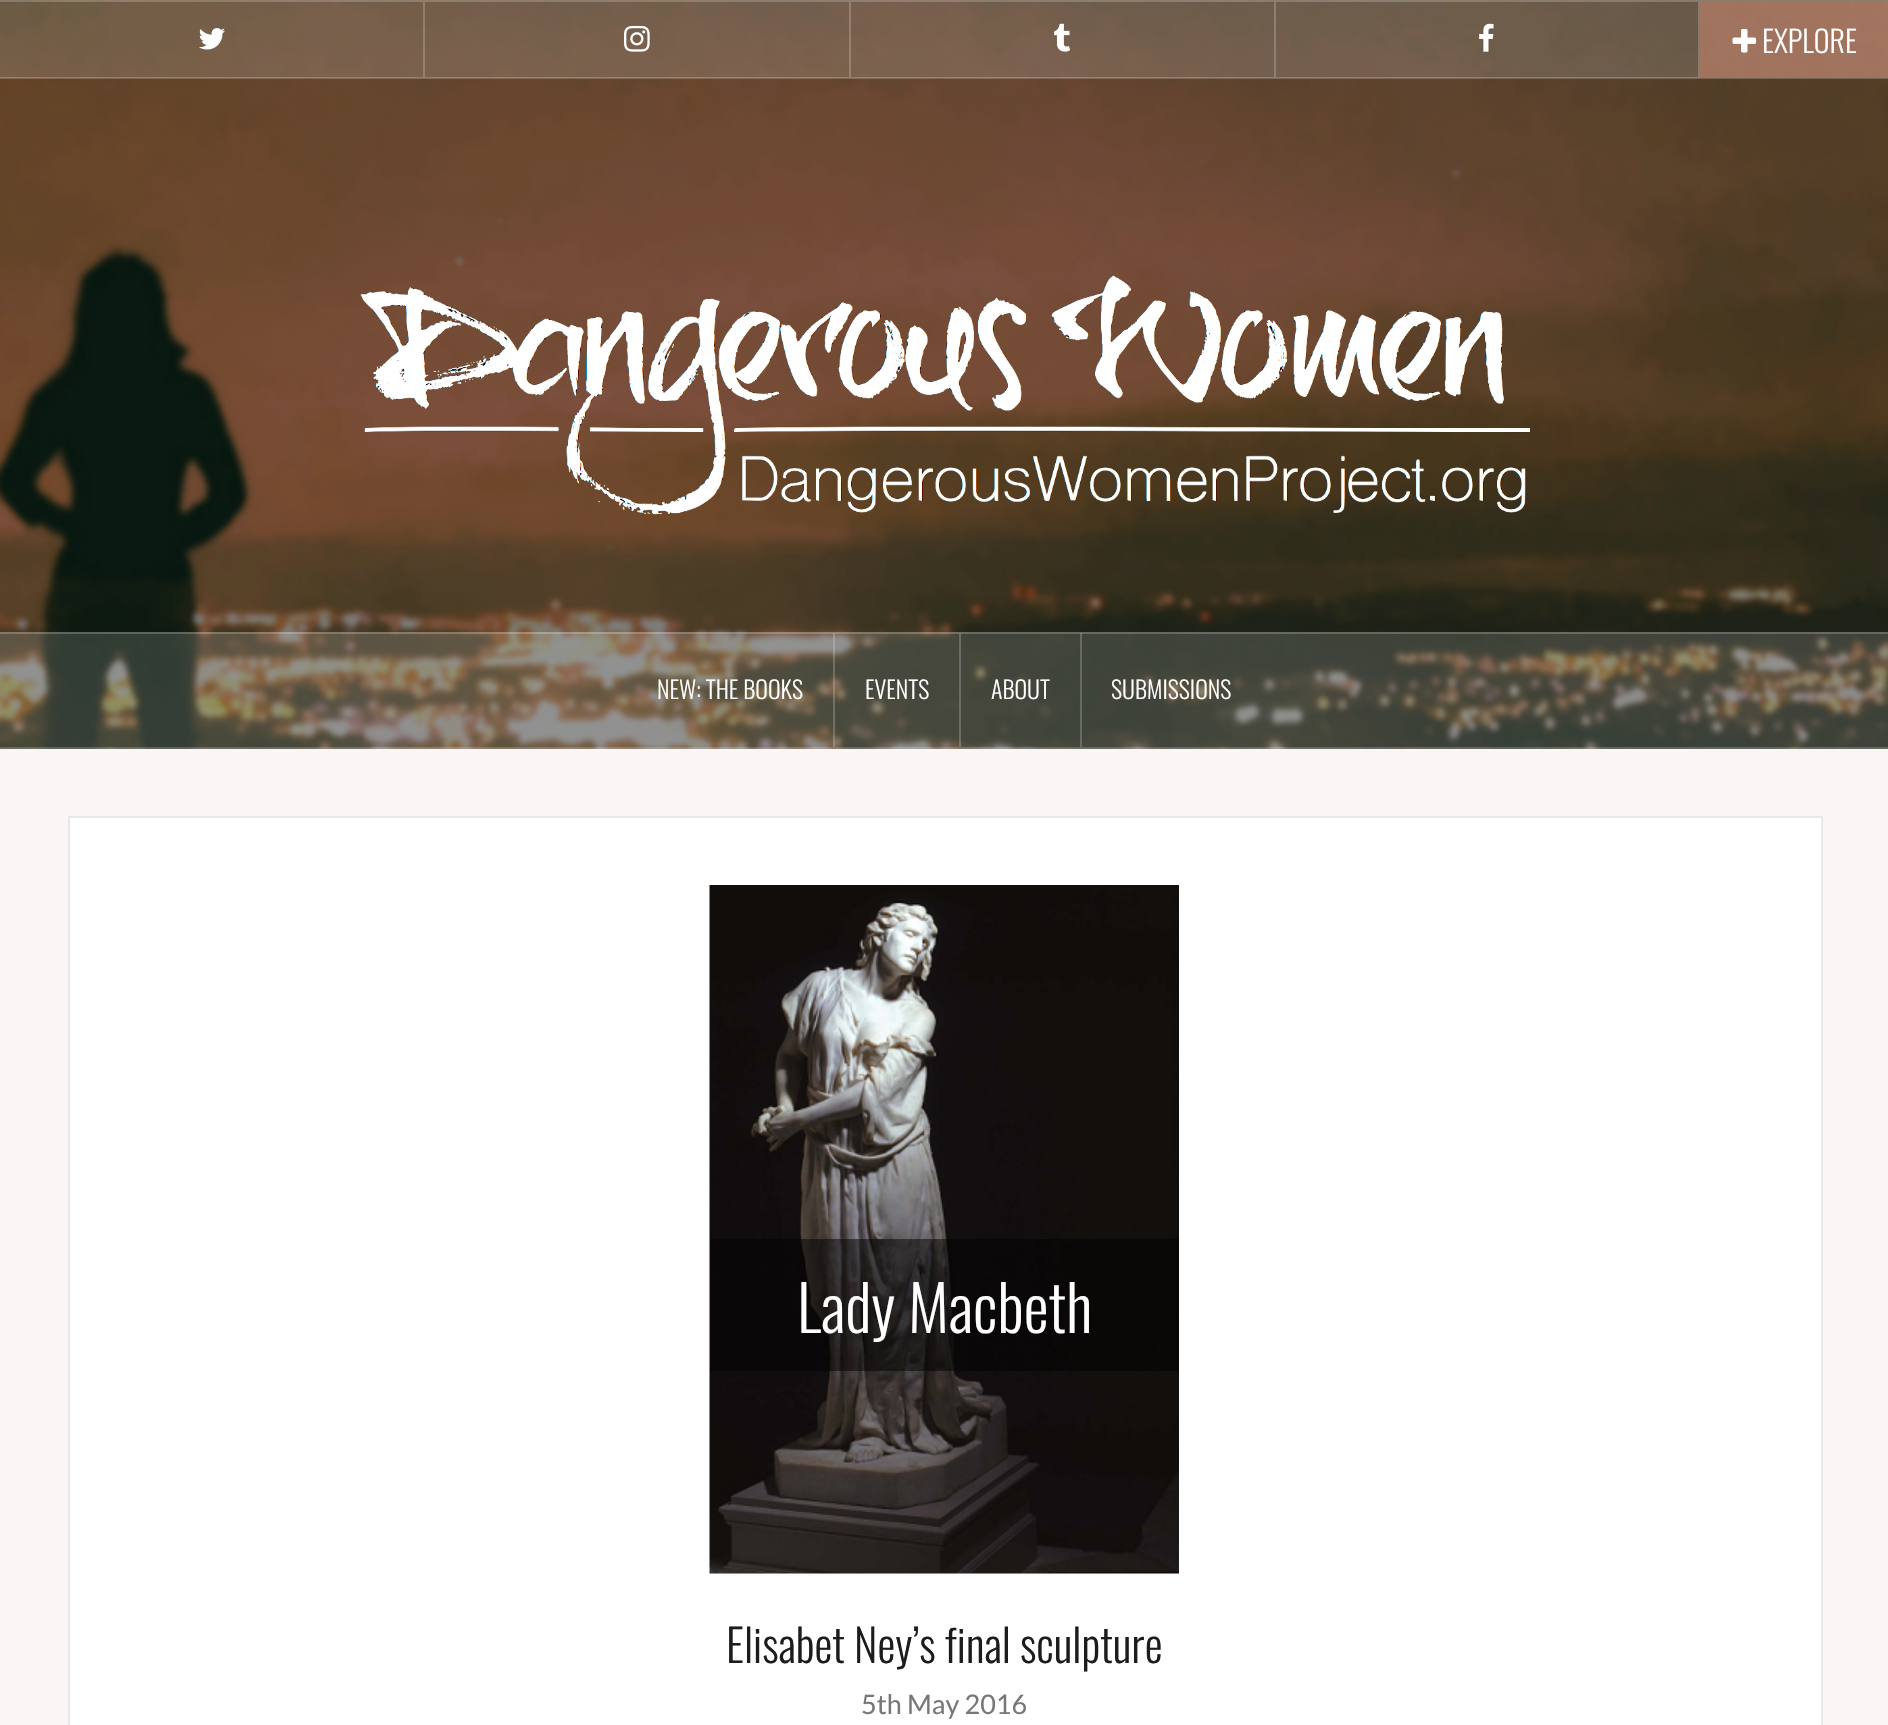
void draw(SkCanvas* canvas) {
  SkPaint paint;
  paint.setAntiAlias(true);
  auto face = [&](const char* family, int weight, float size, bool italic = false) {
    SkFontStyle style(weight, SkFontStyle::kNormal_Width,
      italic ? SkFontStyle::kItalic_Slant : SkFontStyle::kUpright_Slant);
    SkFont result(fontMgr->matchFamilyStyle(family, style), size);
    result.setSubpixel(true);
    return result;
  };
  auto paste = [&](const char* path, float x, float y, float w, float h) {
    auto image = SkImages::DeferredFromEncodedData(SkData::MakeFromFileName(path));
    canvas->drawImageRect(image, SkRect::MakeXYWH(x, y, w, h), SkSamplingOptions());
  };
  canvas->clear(0xfff9f6f5);
  paste("img/1.png", 0, 0, 1888, 749);
  {
    const struct { float x, y, w, h; SkColor color; } items[] = {
      {0, 0, 1888, 78, 0x26ffffff},
      {0, 0, 1888, 2, 0x33ffffff},
      {0, 77, 1888, 2, 0x33ffffff},
      {423, 2, 2, 75, 0x33ffffff},
    };
    for (auto [x, y, w, h, color] : items) {
      paint.setColor(color);
      canvas->drawRect(SkRect::MakeXYWH(x, y, w, h), paint);
    }
  }
  paste("img/2.png", 199, 28, 26, 22);
  canvas->drawRect(SkRect::MakeXYWH(849, 2, 2, 75), paint);
  paste("img/3.png", 624, 25, 26, 27);
  canvas->drawRect(SkRect::MakeXYWH(1274, 2, 2, 75), paint);
  paste("img/4.png", 1054, 23, 17, 29);
  canvas->drawRect(SkRect::MakeXYWH(1698, 2, 2, 75), paint);
  paste("img/5.png", 1479, 23, 15, 29);
  paint.setColor(0x66ef997f);
  canvas->drawRect(SkRect::MakeXYWH(1700, 2, 188, 75), paint);
  paste("img/6.png", 1732, 28, 25, 25);
  paste("img/7.png", 360, 275, 1170, 240);
  {
    const struct { float x, y, w, h; SkColor color; } items[] = {
      {0, 632, 1888, 117, 0x26ffffff},
      {0, 632, 1888, 2, 0x33ffffff},
      {0, 747, 1888, 2, 0x33ffffff},
      {833, 633, 2, 114, 0x33ffffff},
      {959, 633, 2, 114, 0x33ffffff},
      {1080, 633, 2, 114, 0x33ffffff},
    };
    for (auto [x, y, w, h, color] : items) {
      paint.setColor(color);
      canvas->drawRect(SkRect::MakeXYWH(x, y, w, h), paint);
    }
  }
  paint.setColor(0xffffffff);
  canvas->drawRect(SkRect::MakeXYWH(69, 817, 1753, 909), paint);
  paint.setStroke(true);
  paint.setStrokeWidth(2);
  paint.setColor(0xffe8e8e8);
  canvas->drawRect(SkRect::MakeXYWH(69, 817, 1753, 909), paint);
  paste("img/8.png", 709, 885, 470, 689);
  paint.setStroke(false);
  paint.setColor(0x80000000);
  canvas->drawRect(SkRect::MakeXYWH(710, 1239, 469, 132), paint);
  auto f0 = face("Oswald", 300, 30);
  paint.setColor(0xffffffff);
  canvas->drawString("EXPLORE", 1762, 53, f0, paint);
  auto f1 = face("Oswald", 300, 24);
  {
    const struct { const char* s; float x, y; } items[] = {
      {"NEW: THE BOOKS", 657, 699},
      {"EVENTS", 865, 699},
      {"ABOUT", 991, 699},
      {"SUBMISSIONS", 1111, 699},
    };
    for (auto [s, x, y] : items) {
      canvas->drawString(s, x, y, f1, paint);
    }
  }
  auto f2 = face("Oswald", 300, 63);
  canvas->drawString("Lady Macbeth", 797, 1333, f2, paint);
  auto f3 = face("Oswald", 300, 45);
  paint.setColor(0xff1c1c1c);
  canvas->drawString("Elisabet Ney’s final sculpture", 726, 1663, f3, paint);
  auto f4 = face("Lato", 400, 27);
  paint.setColor(0xff777777);
  canvas->drawString("5th May 2016", 861, 1714, f4, paint);
}
